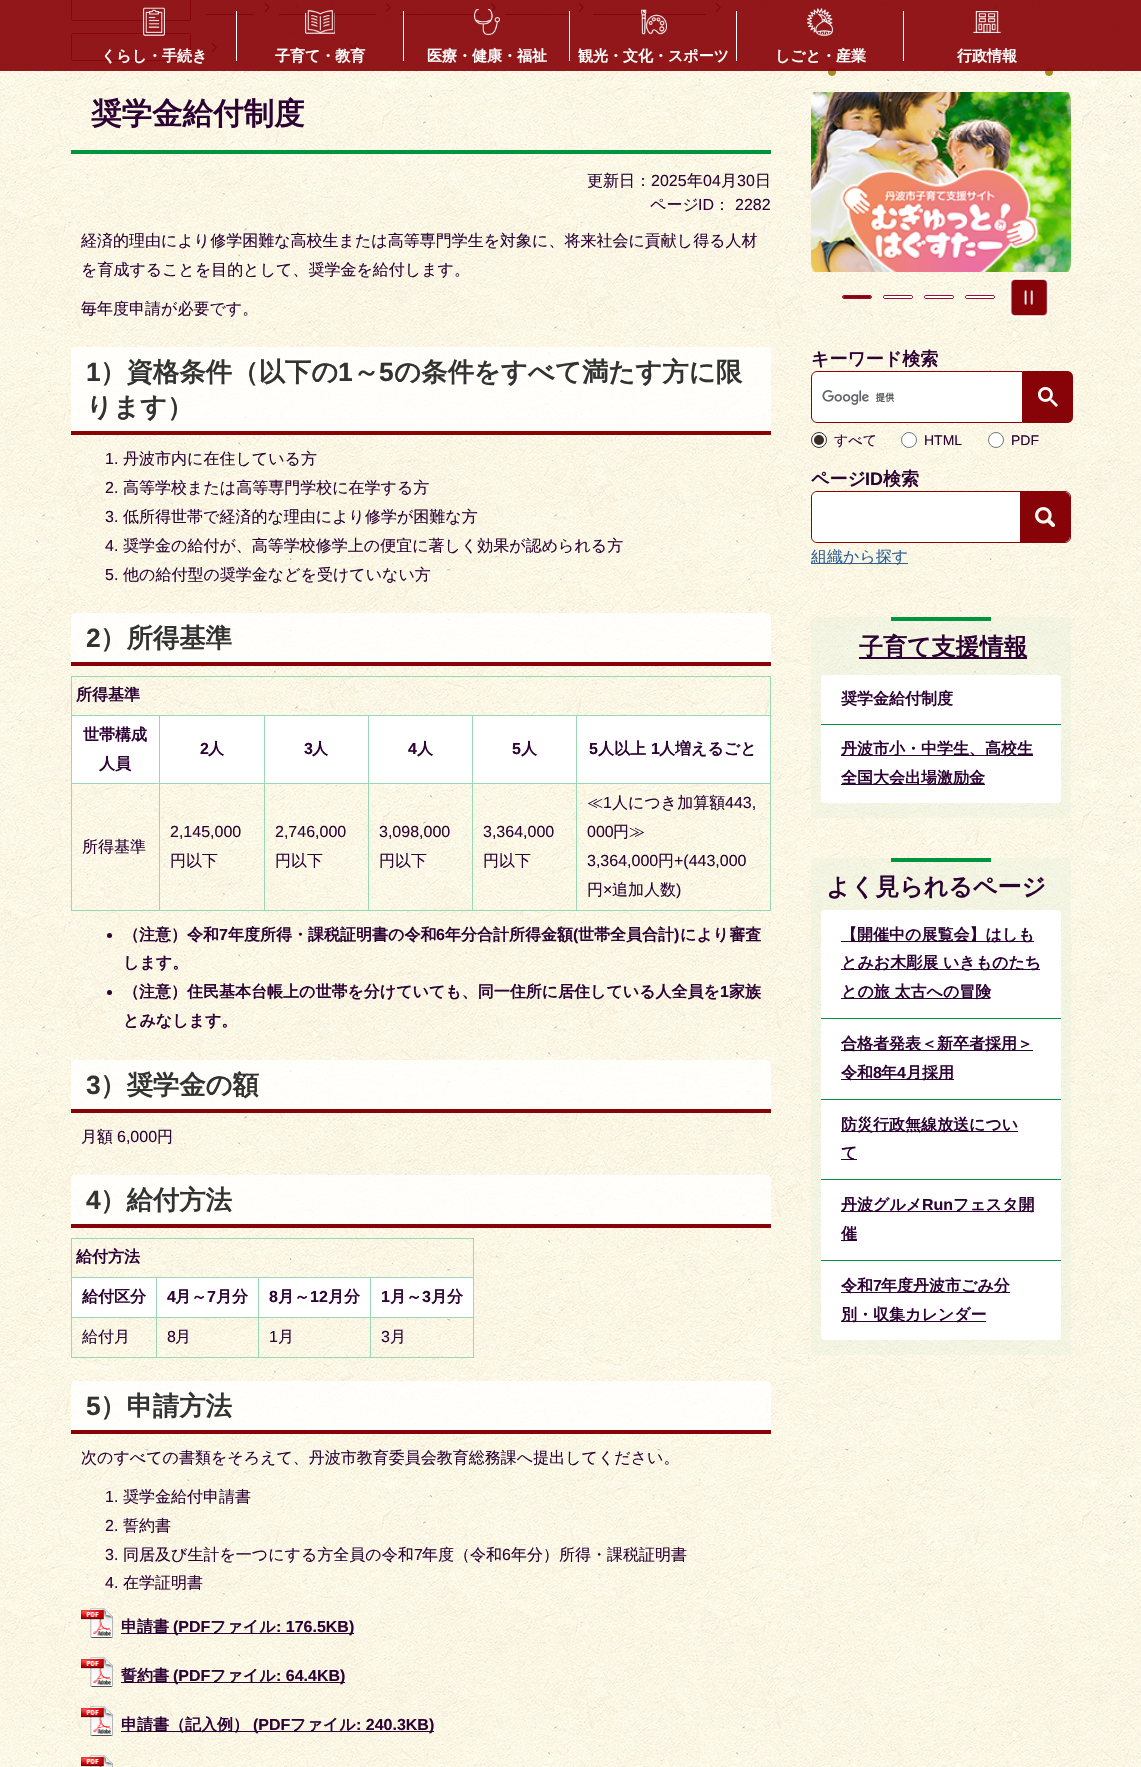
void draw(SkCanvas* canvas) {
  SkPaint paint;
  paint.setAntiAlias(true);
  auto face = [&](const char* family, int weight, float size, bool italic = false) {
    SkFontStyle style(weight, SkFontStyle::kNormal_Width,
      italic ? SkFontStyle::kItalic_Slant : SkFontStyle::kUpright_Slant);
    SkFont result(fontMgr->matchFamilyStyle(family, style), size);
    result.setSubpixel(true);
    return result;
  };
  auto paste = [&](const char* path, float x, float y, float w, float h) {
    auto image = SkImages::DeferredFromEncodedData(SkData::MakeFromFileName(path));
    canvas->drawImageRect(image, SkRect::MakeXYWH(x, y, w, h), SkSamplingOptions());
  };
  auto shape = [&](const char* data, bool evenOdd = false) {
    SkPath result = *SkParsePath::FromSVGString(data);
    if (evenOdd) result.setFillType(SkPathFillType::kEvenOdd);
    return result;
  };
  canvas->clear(0xffffffff);
  paste("img/1.png", 0, 0, 1141, 1767);
  paint.setColor(0xffffffff);
  canvas->drawRoundRect(SkRect::MakeXYWH(71.5f, -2.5f, 119, 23), 1.5f, 1.5f, paint);
  paint.setStroke(true);
  paint.setStrokeWidth(1);
  paint.setColor(0xff880308);
  canvas->drawRoundRect(SkRect::MakeXYWH(71.5f, -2.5f, 119, 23), 1.5f, 1.5f, paint);
  paste("img/2.png", 264, 3, 6, 9);
  paint.setStroke(false);
  paint.setColor(0xff2d0334);
  canvas->drawRect(SkRect::MakeXYWH(279, 14, 97, 1), paint);
  paste("img/3.png", 385, 3, 6, 9);
  canvas->drawRect(SkRect::MakeXYWH(400, 14, 80, 1), paint);
  paste("img/4.png", 490, 3, 6, 9);
  canvas->drawRect(SkRect::MakeXYWH(505, 14, 64, 1), paint);
  paste("img/5.png", 578, 3, 6, 9);
  canvas->drawRect(SkRect::MakeXYWH(593, 14, 113, 1), paint);
  paste("img/6.png", 715, 3, 6, 9);
  canvas->drawRect(SkRect::MakeXYWH(206, 14, 48, 1), paint);
  paint.setColor(0xffffffff);
  canvas->drawRoundRect(SkRect::MakeXYWH(71.5f, 33.5f, 119, 27), 1.5f, 1.5f, paint);
  paint.setStroke(true);
  paint.setColor(0xff880308);
  canvas->drawRoundRect(SkRect::MakeXYWH(71.5f, 33.5f, 119, 27), 1.5f, 1.5f, paint);
  paste("img/7.png", 211, 43, 6, 9);
  paste("img/8.png", 343, 38, 20, 20);
  paste("img/19.png", 828, 68, 225, 8);
  paint.setStroke(false);
  paint.setColor(0xeb880308);
  canvas->drawRect(SkRect::MakeXYWH(0, 0, 1141, 71), paint);
  paste("img/9.png", 143, 7, 22, 29);
  paint.setColor(0xffffffff);
  canvas->drawRect(SkRect::MakeXYWH(236, 11, 1, 50), paint);
  paste("img/10.png", 305, 10, 30, 24);
  canvas->drawRect(SkRect::MakeXYWH(403, 11, 1, 50), paint);
  paste("img/11.png", 474, 9, 26, 26);
  canvas->drawRect(SkRect::MakeXYWH(569, 11, 1, 50), paint);
  paste("img/12.png", 641, 9, 26, 26);
  canvas->drawRect(SkRect::MakeXYWH(736, 11, 1, 50), paint);
  paste("img/13.png", 807, 8, 26, 28);
  canvas->drawRect(SkRect::MakeXYWH(903, 11, 1, 50), paint);
  paste("img/14.png", 973, 11, 28, 22);
  paint.setColor(0xff009441);
  canvas->drawRect(SkRect::MakeXYWH(71, 150, 700, 4), paint);
  paint.setColor(0xccffffff);
  canvas->drawPath(shape("M75 347H767C769 347 771 349 771 351V435H71V351C71 349 73 347 75 347Z"), paint);
  paint.setColor(0xff880308);
  canvas->drawRect(SkRect::MakeXYWH(71, 431, 700, 4), paint);
  paint.setColor(0xccffffff);
  canvas->drawPath(shape("M75 613H767C769 613 771 615 771 617V666H71V617C71 615 73 613 75 613Z"), paint);
  {
    const struct { float x, y, w, h; SkColor color; } items[] = {
      {71, 662, 700, 4, 0xff880308},
      {71, 676, 700, 1, 0xff9ad7b5},
      {770, 676, 1, 235, 0xff9ad7b5},
      {71, 910, 700, 1, 0xff9ad7b5},
      {71, 676, 1, 235, 0xff9ad7b5},
      {72, 716, 87, 67, 0xffffffff},
      {576, 715, 195, 1, 0xff9ad7b5},
      {576, 783, 195, 1, 0xff9ad7b5},
      {576, 783, 1, 128, 0xff9ad7b5},
      {472, 783, 105, 1, 0xff9ad7b5},
      {576, 715, 1, 69, 0xff9ad7b5},
      {472, 715, 105, 1, 0xff9ad7b5},
      {472, 783, 1, 128, 0xff9ad7b5},
      {368, 783, 105, 1, 0xff9ad7b5},
      {472, 715, 1, 69, 0xff9ad7b5},
      {368, 715, 105, 1, 0xff9ad7b5},
      {368, 783, 1, 128, 0xff9ad7b5},
      {264, 783, 105, 1, 0xff9ad7b5},
      {368, 715, 1, 69, 0xff9ad7b5},
      {264, 715, 105, 1, 0xff9ad7b5},
      {264, 783, 1, 128, 0xff9ad7b5},
      {159, 783, 106, 1, 0xff9ad7b5},
      {264, 715, 1, 69, 0xff9ad7b5},
      {159, 715, 106, 1, 0xff9ad7b5},
      {159, 783, 1, 128, 0xff9ad7b5},
      {71, 783, 89, 1, 0xff9ad7b5},
      {159, 715, 1, 69, 0xff9ad7b5},
      {71, 715, 89, 1, 0xff9ad7b5},
      {160, 716, 104, 67, 0xffffffff},
      {265, 716, 103, 67, 0xffffffff},
      {369, 716, 103, 67, 0xffffffff},
      {473, 716, 103, 67, 0xffffffff},
      {577, 716, 193, 67, 0xffffffff},
    };
    for (auto [x, y, w, h, color] : items) {
      paint.setColor(color);
      canvas->drawRect(SkRect::MakeXYWH(x, y, w, h), paint);
    }
  }
  paint.setColor(0xff2d0334);
  canvas->drawCircle(109.5f, 935.5f, 2.5f, paint);
  canvas->drawCircle(109.5f, 992.5f, 2.5f, paint);
  paint.setColor(0xccffffff);
  canvas->drawPath(shape("M75 1060H767C769 1060 771 1062 771 1064V1113H71V1064C71 1062 73 1060 75 1060Z"), paint);
  paint.setColor(0xff880308);
  canvas->drawRect(SkRect::MakeXYWH(71, 1109, 700, 4), paint);
  paint.setColor(0xccffffff);
  canvas->drawPath(shape("M75 1175H767C769 1175 771 1177 771 1179V1228H71V1179C71 1177 73 1175 75 1175Z"), paint);
  {
    const struct { float x, y, w, h; SkColor color; } items[] = {
      {71, 1224, 700, 4, 0xff880308},
      {71, 1238, 403, 1, 0xff9ad7b5},
      {473, 1238, 1, 120, 0xff9ad7b5},
      {71, 1357, 403, 1, 0xff9ad7b5},
      {71, 1238, 1, 120, 0xff9ad7b5},
      {72, 1278, 84, 39, 0xffffffff},
      {370, 1277, 104, 1, 0xff9ad7b5},
      {370, 1317, 104, 1, 0xff9ad7b5},
      {370, 1317, 1, 41, 0xff9ad7b5},
      {258, 1317, 113, 1, 0xff9ad7b5},
      {370, 1277, 1, 41, 0xff9ad7b5},
      {258, 1277, 113, 1, 0xff9ad7b5},
      {258, 1317, 1, 41, 0xff9ad7b5},
      {156, 1317, 103, 1, 0xff9ad7b5},
      {258, 1277, 1, 41, 0xff9ad7b5},
      {156, 1277, 103, 1, 0xff9ad7b5},
      {156, 1317, 1, 41, 0xff9ad7b5},
      {71, 1317, 86, 1, 0xff9ad7b5},
      {156, 1277, 1, 41, 0xff9ad7b5},
      {71, 1277, 86, 1, 0xff9ad7b5},
      {157, 1278, 101, 39, 0xffffffff},
      {259, 1278, 111, 39, 0xffffffff},
      {371, 1278, 102, 39, 0xffffffff},
    };
    for (auto [x, y, w, h, color] : items) {
      paint.setColor(color);
      canvas->drawRect(SkRect::MakeXYWH(x, y, w, h), paint);
    }
  }
  paint.setColor(0xccffffff);
  canvas->drawPath(shape("M75 1381H767C769 1381 771 1383 771 1385V1434H71V1385C71 1383 73 1381 75 1381Z"), paint);
  paint.setColor(0xff880308);
  canvas->drawRect(SkRect::MakeXYWH(71, 1430, 700, 4), paint);
  paste("img/15.png", 81, 1608, 32, 30);
  paint.setColor(0xff2d0334);
  canvas->drawRect(SkRect::MakeXYWH(121, 1633, 233, 1), paint);
  paste("img/16.png", 81, 1657, 32, 30);
  canvas->drawRect(SkRect::MakeXYWH(121, 1682, 224, 1), paint);
  paste("img/17.png", 81, 1706, 32, 30);
  canvas->drawRect(SkRect::MakeXYWH(121, 1731, 313, 1), paint);
  paste("img/18.png", 81, 1755, 32, 12);
  paste("img/20.png", 811, 92, 260, 180);
  paint.setStroke(true);
  paint.setColor(0xff950d31);
  canvas->drawRoundRect(SkRect::MakeXYWH(842.5f, 295.5f, 29, 3), 1.5f, 1.5f, paint);
  paint.setStroke(false);
  paint.setColor(0xff880308);
  canvas->drawRoundRect(SkRect::MakeXYWH(843, 296, 28, 2), 1, 1, paint);
  paint.setStroke(true);
  paint.setColor(0xff950d31);
  canvas->drawRoundRect(SkRect::MakeXYWH(883.5f, 295.5f, 29, 3), 1.5f, 1.5f, paint);
  paint.setStroke(false);
  paint.setColor(0xffffffff);
  canvas->drawRoundRect(SkRect::MakeXYWH(884, 296, 28, 2), 1, 1, paint);
  paint.setStroke(true);
  paint.setColor(0xff950d31);
  canvas->drawRoundRect(SkRect::MakeXYWH(924.5f, 295.5f, 29, 3), 1.5f, 1.5f, paint);
  paint.setStroke(false);
  paint.setColor(0xffffffff);
  canvas->drawRoundRect(SkRect::MakeXYWH(925, 296, 28, 2), 1, 1, paint);
  paint.setStroke(true);
  paint.setColor(0xff950d31);
  canvas->drawRoundRect(SkRect::MakeXYWH(965.5f, 295.5f, 29, 3), 1.5f, 1.5f, paint);
  paint.setStroke(false);
  paint.setColor(0xffffffff);
  canvas->drawRoundRect(SkRect::MakeXYWH(966, 296, 28, 2), 1, 1, paint);
  paste("img/21.png", 1009, 278, 40, 39);
  canvas->drawPath(shape("M817 371.5H1022.5V422.5H817C814 422.5 811.5 420 811.5 417V377C811.5 374 814 371.5 817 371.5Z"), paint);
  paint.setStroke(true);
  paint.setColor(0xff880308);
  canvas->drawPath(shape("M817 371.5H1022.5V422.5H817C814 422.5 811.5 420 811.5 417V377C811.5 374 814 371.5 817 371.5Z"), paint);
  paste("img/22.png", 822, 390, 73, 15);
  paint.setStroke(false);
  canvas->drawPath(shape("M1023 371H1067C1070.5 371 1073 373.5 1073 377V417C1073 420.5 1070.5 423 1067 423H1023Z"), paint);
  paste("img/23.png", 1038, 387, 20, 20);
  paint.setColor(0xffffffff);
  canvas->drawCircle(819, 440, 7.5f, paint);
  paint.setStroke(true);
  paint.setColor(0xff382d25);
  canvas->drawCircle(819, 440, 7.5f, paint);
  paint.setStroke(false);
  canvas->drawCircle(819, 440, 5, paint);
  paint.setColor(0xffffffff);
  canvas->drawCircle(909, 440, 7.5f, paint);
  paint.setStroke(true);
  paint.setColor(0xff767676);
  canvas->drawCircle(909, 440, 7.5f, paint);
  paint.setStroke(false);
  paint.setColor(0xffffffff);
  canvas->drawCircle(996, 440, 7.5f, paint);
  paint.setStroke(true);
  paint.setColor(0xff767676);
  canvas->drawCircle(996, 440, 7.5f, paint);
  paint.setColor(0xff880308);
  canvas->drawRoundRect(SkRect::MakeXYWH(811.5f, 491.5f, 259, 51), 5.5f, 5.5f, paint);
  paint.setStroke(false);
  paint.setColor(0xffffffff);
  canvas->drawPath(shape("M818 492H1020V542H818C814.5 542 812 539.5 812 536V498C812 494.5 814.5 492 818 492Z"), paint);
  paint.setColor(0xff880308);
  canvas->drawPath(shape("M1020 492H1064C1067.5 492 1070 494.5 1070 498V536C1070 539.5 1067.5 542 1064 542H1020Z"), paint);
  paste("img/24.png", 1035, 507, 20, 20);
  paint.setColor(0xff2d5f92);
  canvas->drawRect(SkRect::MakeXYWH(811, 563, 97, 1), paint);
  paint.setColor(0x4de0efd9);
  canvas->drawPath(shape("M815 617H1067C1069 617 1071 619 1071 621V818H811V621C811 619 813 617 815 617Z"), paint);
  paint.setColor(0xff009441);
  canvas->drawRect(SkRect::MakeXYWH(891, 617, 100, 4), paint);
  paint.setColor(0xff2d0334);
  canvas->drawRect(SkRect::MakeXYWH(859, 657, 168, 2), paint);
  paint.setColor(0xffffffff);
  canvas->drawRoundRect(SkRect::MakeXYWH(821, 675, 240, 128), 4, 4, paint);
  {
    const struct { float x, y, w, h; SkColor color; } items[] = {
      {821, 724, 240, 1, 0xff009441},
      {841, 755, 192, 1, 0xff2d0334},
      {841, 784, 144, 1, 0xff2d0334},
    };
    for (auto [x, y, w, h, color] : items) {
      paint.setColor(color);
      canvas->drawRect(SkRect::MakeXYWH(x, y, w, h), paint);
    }
  }
  paint.setColor(0x4de0efd9);
  canvas->drawPath(shape("M815 858H1067C1069 858 1071 860 1071 862V1355H811V862C811 860 813 858 815 858Z"), paint);
  paint.setColor(0xff009441);
  canvas->drawRect(SkRect::MakeXYWH(891, 858, 100, 4), paint);
  paint.setColor(0xffffffff);
  canvas->drawRoundRect(SkRect::MakeXYWH(821, 910, 240, 430), 4, 4, paint);
  {
    const struct { float x, y, w, h; SkColor color; } items[] = {
      {821, 1018, 240, 1, 0xff009441},
      {841, 941, 193, 1, 0xff2d0334},
      {841, 969, 199, 1, 0xff2d0334},
      {841, 998, 149, 1, 0xff2d0334},
      {821, 1099, 240, 1, 0xff009441},
      {841, 1050, 192, 1, 0xff2d0334},
      {841, 1079, 113, 1, 0xff2d0334},
      {821, 1179, 240, 1, 0xff009441},
      {841, 1131, 177, 1, 0xff2d0334},
      {841, 1159, 16, 1, 0xff2d0334},
      {821, 1260, 240, 1, 0xff009441},
      {841, 1211, 193, 1, 0xff2d0334},
      {841, 1240, 16, 1, 0xff2d0334},
      {841, 1292, 169, 1, 0xff2d0334},
      {841, 1321, 145, 1, 0xff2d0334},
    };
    for (auto [x, y, w, h, color] : items) {
      paint.setColor(color);
      canvas->drawRect(SkRect::MakeXYWH(x, y, w, h), paint);
    }
  }
  auto f0 = face("WenQuanYi Zen Hei", 700, 15);
  paint.setColor(0xffffffff);
  {
    const struct { const char* s; float x, y; } items[] = {
      {"くらし・手続き", 101, 61},
      {"子育て・教育", 275, 61},
      {"医療・健康・福祉", 427, 61},
      {"観光・文化・スポーツ", 578, 61},
      {"しごと・産業", 775, 61},
      {"行政情報", 957, 61},
    };
    for (auto [s, x, y] : items) {
      canvas->drawString(s, x, y, f0, paint);
    }
  }
  auto f1 = face("WenQuanYi Zen Hei", 700, 30.5f);
  paint.setColor(0xff2d0334);
  canvas->drawString("奨学金給付制度", 91, 124, f1, paint);
  auto f2 = face("WenQuanYi Zen Hei", 500, 16);
  canvas->drawString("更新日：", 587, 186, f2, paint);
  auto f3 = face("Liberation Sans", 400, 16);
  canvas->drawString("2025", 651, 186, f3, paint);
  canvas->drawString("年", 687, 186, f2, paint);
  canvas->drawString("04", 703, 186, f3, paint);
  canvas->drawString("月", 721, 186, f2, paint);
  canvas->drawString("30", 737, 186, f3, paint);
  canvas->drawString("日", 755, 186, f2, paint);
  canvas->drawString("ページ", 650, 210, f2, paint);
  canvas->drawString("ID", 698, 210, f3, paint);
  canvas->drawString("：", 714, 210, f2, paint);
  canvas->drawString("2282", 735, 210, f3, paint);
  {
    const struct { const char* s; float x, y; } items[] = {
      {"経済的理由により修学困難な高校生または高等専門学生を対象に、将来社会に貢献し得る人材", 81, 246},
      {"を育成することを目的として、奨学金を給付します。", 81, 275},
      {"毎年度申請が必要です。", 81, 314},
    };
    for (auto [s, x, y] : items) {
      canvas->drawString(s, x, y, f2, paint);
    }
  }
  auto f4 = face("Liberation Sans", 700, 26.4f);
  paint.setColor(0xff333333);
  canvas->drawString("1", 86, 381, f4, paint);
  auto f5 = face("WenQuanYi Zen Hei", 700, 26.4f);
  canvas->drawString("）資格条件（以下の", 100, 381, f5, paint);
  canvas->drawString("1", 338, 381, f4, paint);
  canvas->drawString("～", 353, 381, f5, paint);
  canvas->drawString("5", 379, 381, f4, paint);
  canvas->drawString("の条件をすべて満たす方に限", 394, 381, f5, paint);
  canvas->drawString("ります）", 86, 416, f5, paint);
  paint.setColor(0xff2d0334);
  canvas->drawString("1.", 105, 464, f3, paint);
  canvas->drawString("丹波市内に在住している方", 123, 464, f2, paint);
  canvas->drawString("2.", 105, 493, f3, paint);
  canvas->drawString("高等学校または高等専門学校に在学する方", 123, 493, f2, paint);
  canvas->drawString("3.", 105, 522, f3, paint);
  canvas->drawString("低所得世帯で経済的な理由により修学が困難な方", 123, 522, f2, paint);
  canvas->drawString("4.", 105, 551, f3, paint);
  canvas->drawString("奨学金の給付が、高等学校修学上の便宜に著しく効果が認められる方", 123, 551, f2, paint);
  canvas->drawString("5.", 105, 580, f3, paint);
  canvas->drawString("他の給付型の奨学金などを受けていない方", 123, 580, f2, paint);
  paint.setColor(0xff333333);
  canvas->drawString("2", 86, 647, f4, paint);
  canvas->drawString("）所得基準", 100, 647, f5, paint);
  auto f6 = face("WenQuanYi Zen Hei", 700, 16);
  paint.setColor(0xff2d0334);
  {
    const struct { const char* s; float x, y; } items[] = {
      {"所得基準", 76, 700},
      {"世帯構成", 83, 740},
      {"人員", 99, 769},
    };
    for (auto [s, x, y] : items) {
      canvas->drawString(s, x, y, f6, paint);
    }
  }
  auto f7 = face("Liberation Sans", 700, 16);
  canvas->drawString("2", 200, 754, f7, paint);
  canvas->drawString("人", 208, 754, f6, paint);
  canvas->drawString("3", 304, 754, f7, paint);
  canvas->drawString("人", 312, 754, f6, paint);
  canvas->drawString("4", 408, 754, f7, paint);
  canvas->drawString("人", 417, 754, f6, paint);
  canvas->drawString("5", 512, 754, f7, paint);
  canvas->drawString("人", 521, 754, f6, paint);
  canvas->drawString("5", 589, 754, f7, paint);
  canvas->drawString("人以上", 598, 754, f6, paint);
  canvas->drawString("1", 651, 754, f7, paint);
  canvas->drawString("人増えるごと", 659, 754, f6, paint);
  canvas->drawString("所得基準", 82, 852, f2, paint);
  canvas->drawString("2,145,000", 170, 837, f3, paint);
  canvas->drawString("円以下", 170, 866, f2, paint);
  canvas->drawString("2,746,000", 275, 837, f3, paint);
  canvas->drawString("円以下", 275, 866, f2, paint);
  canvas->drawString("3,098,000", 379, 837, f3, paint);
  canvas->drawString("円以下", 379, 866, f2, paint);
  canvas->drawString("3,364,000", 483, 837, f3, paint);
  canvas->drawString("円以下", 483, 866, f2, paint);
  canvas->drawString("≪", 587, 808, f2, paint);
  canvas->drawString("1", 603, 808, f3, paint);
  canvas->drawString("人につき加算額", 612, 808, f2, paint);
  canvas->drawString("443,", 725, 808, f3, paint);
  canvas->drawString("000", 587, 837, f3, paint);
  canvas->drawString("円≫", 613, 837, f2, paint);
  canvas->drawString("3,364,000", 587, 866, f3, paint);
  canvas->drawString("円", 658, 866, f2, paint);
  canvas->drawString("+(443,000", 674, 866, f3, paint);
  canvas->drawString("円", 587, 895, f2, paint);
  canvas->drawString("×", 603, 895, f3, paint);
  canvas->drawString("追加人数", 612, 895, f2, paint);
  canvas->drawString(")", 676, 895, f3, paint);
  canvas->drawString("（注意）令和", 123, 940, f6, paint);
  canvas->drawString("7", 219, 940, f7, paint);
  canvas->drawString("年度所得・課税証明書の令和", 228, 940, f6, paint);
  canvas->drawString("6", 436, 940, f7, paint);
  canvas->drawString("年分合計所得金額", 445, 940, f6, paint);
  canvas->drawString("(", 573, 940, f7, paint);
  canvas->drawString("世帯全員合計", 578, 940, f6, paint);
  canvas->drawString(")", 674, 940, f7, paint);
  {
    const struct { const char* s; float x, y; } items[] = {
      {"により審査", 680, 940},
      {"します。", 123, 968},
      {"（注意）住民基本台帳上の世帯を分けていても、同一住所に居住している人全員を", 123, 997},
    };
    for (auto [s, x, y] : items) {
      canvas->drawString(s, x, y, f6, paint);
    }
  }
  canvas->drawString("1", 720, 997, f7, paint);
  canvas->drawString("家族", 729, 997, f6, paint);
  canvas->drawString("とみなします。", 123, 1026, f6, paint);
  paint.setColor(0xff333333);
  canvas->drawString("3", 86, 1094, f4, paint);
  canvas->drawString("）奨学金の額", 100, 1094, f5, paint);
  paint.setColor(0xff2d0334);
  canvas->drawString("月額", 81, 1142, f2, paint);
  canvas->drawString("6,000", 117, 1142, f3, paint);
  canvas->drawString("円", 157, 1142, f2, paint);
  paint.setColor(0xff333333);
  canvas->drawString("4", 86, 1209, f4, paint);
  canvas->drawString("）給付方法", 100, 1209, f5, paint);
  paint.setColor(0xff2d0334);
  canvas->drawString("給付方法", 76, 1262, f6, paint);
  canvas->drawString("給付区分", 82, 1302, f6, paint);
  canvas->drawString("4", 167, 1302, f7, paint);
  canvas->drawString("月～", 175, 1302, f6, paint);
  canvas->drawString("7", 207, 1302, f7, paint);
  canvas->drawString("月分", 216, 1302, f6, paint);
  canvas->drawString("8", 269, 1302, f7, paint);
  canvas->drawString("月～", 278, 1302, f6, paint);
  canvas->drawString("12", 310, 1302, f7, paint);
  canvas->drawString("月分", 328, 1302, f6, paint);
  canvas->drawString("1", 381, 1302, f7, paint);
  canvas->drawString("月～", 390, 1302, f6, paint);
  canvas->drawString("3", 422, 1302, f7, paint);
  canvas->drawString("月分", 431, 1302, f6, paint);
  canvas->drawString("給付月", 82, 1342, f2, paint);
  canvas->drawString("8", 167, 1342, f3, paint);
  canvas->drawString("月", 175, 1342, f2, paint);
  canvas->drawString("1", 269, 1342, f3, paint);
  canvas->drawString("月", 278, 1342, f2, paint);
  canvas->drawString("3", 381, 1342, f3, paint);
  canvas->drawString("月", 390, 1342, f2, paint);
  paint.setColor(0xff333333);
  canvas->drawString("5", 86, 1415, f4, paint);
  canvas->drawString("）申請方法", 100, 1415, f5, paint);
  paint.setColor(0xff2d0334);
  canvas->drawString("次のすべての書類をそろえて、丹波市教育委員会教育総務課へ提出してください。", 81, 1463, f2, paint);
  canvas->drawString("1.", 105, 1502, f3, paint);
  canvas->drawString("奨学金給付申請書", 123, 1502, f2, paint);
  canvas->drawString("2.", 105, 1531, f3, paint);
  canvas->drawString("誓約書", 123, 1531, f2, paint);
  canvas->drawString("3.", 105, 1560, f3, paint);
  canvas->drawString("同居及び生計を一つにする方全員の令和", 123, 1560, f2, paint);
  canvas->drawString("7", 414, 1560, f3, paint);
  canvas->drawString("年度（令和", 422, 1560, f2, paint);
  canvas->drawString("6", 502, 1560, f3, paint);
  canvas->drawString("年分）所得・課税証明書", 511, 1560, f2, paint);
  canvas->drawString("4.", 105, 1588, f3, paint);
  canvas->drawString("在学証明書", 123, 1588, f2, paint);
  canvas->drawString("申請書", 121, 1632, f6, paint);
  canvas->drawString("(PDF", 173, 1632, f7, paint);
  canvas->drawString("ファイル", 210, 1632, f6, paint);
  canvas->drawString(": 176.5KB)", 276, 1632, f7, paint);
  canvas->drawString("誓約書", 121, 1681, f6, paint);
  canvas->drawString("(PDF", 173, 1681, f7, paint);
  canvas->drawString("ファイル", 210, 1681, f6, paint);
  canvas->drawString(": 64.4KB)", 276, 1681, f7, paint);
  canvas->drawString("申請書（記入例）", 121, 1730, f6, paint);
  canvas->drawString("(PDF", 253, 1730, f7, paint);
  canvas->drawString("ファイル", 290, 1730, f6, paint);
  canvas->drawString(": 240.3KB)", 356, 1730, f7, paint);
  auto f8 = face("WenQuanYi Zen Hei", 700, 18);
  canvas->drawString("キーワード検索", 811, 365, f8, paint);
  auto f9 = face("WenQuanYi Zen Hei", 500, 14);
  canvas->drawString("すべて", 834, 445, f9, paint);
  auto f10 = face("Liberation Sans", 400, 14);
  canvas->drawString("HTML", 924, 445, f10, paint);
  canvas->drawString("PDF", 1011, 445, f10, paint);
  canvas->drawString("ページ", 811, 485, f8, paint);
  auto f11 = face("Liberation Sans", 700, 18);
  canvas->drawString("ID", 865, 485, f11, paint);
  canvas->drawString("検索", 883, 485, f8, paint);
  paint.setColor(0xff2d5f92);
  canvas->drawString("組織から探す", 811, 562, f2, paint);
  auto f12 = face("WenQuanYi Zen Hei", 700, 24);
  paint.setColor(0xff2d0334);
  canvas->drawString("子育て支援情報", 859, 655, f12, paint);
  {
    const struct { const char* s; float x, y; } items[] = {
      {"奨学金給付制度", 841, 704},
      {"丹波市小・中学生、高校生", 841, 754},
      {"全国大会出場激励金", 841, 783},
    };
    for (auto [s, x, y] : items) {
      canvas->drawString(s, x, y, f6, paint);
    }
  }
  canvas->drawString("よく見られるページ", 826, 895, f12, paint);
  {
    const struct { const char* s; float x, y; } items[] = {
      {"【開催中の展覧会】はしも", 841, 940},
      {"とみお木彫展 いきものたち", 841, 968},
      {"との旅 太古への冒険", 841, 997},
      {"合格者発表＜新卒者採用＞", 841, 1049},
      {"令和", 841, 1078},
    };
    for (auto [s, x, y] : items) {
      canvas->drawString(s, x, y, f6, paint);
    }
  }
  canvas->drawString("8", 873, 1078, f7, paint);
  canvas->drawString("年", 881, 1078, f6, paint);
  canvas->drawString("4", 897, 1078, f7, paint);
  {
    const struct { const char* s; float x, y; } items[] = {
      {"月採用", 906, 1078},
      {"防災行政無線放送につい", 841, 1130},
      {"て", 841, 1158},
      {"丹波グルメ", 841, 1210},
    };
    for (auto [s, x, y] : items) {
      canvas->drawString(s, x, y, f6, paint);
    }
  }
  canvas->drawString("Run", 922, 1210, f7, paint);
  {
    const struct { const char* s; float x, y; } items[] = {
      {"フェスタ開", 953, 1210},
      {"催", 841, 1239},
      {"令和", 841, 1291},
    };
    for (auto [s, x, y] : items) {
      canvas->drawString(s, x, y, f6, paint);
    }
  }
  canvas->drawString("7", 873, 1291, f7, paint);
  canvas->drawString("年度丹波市ごみ分", 881, 1291, f6, paint);
  canvas->drawString("別・収集カレンダー", 841, 1320, f6, paint);
}
